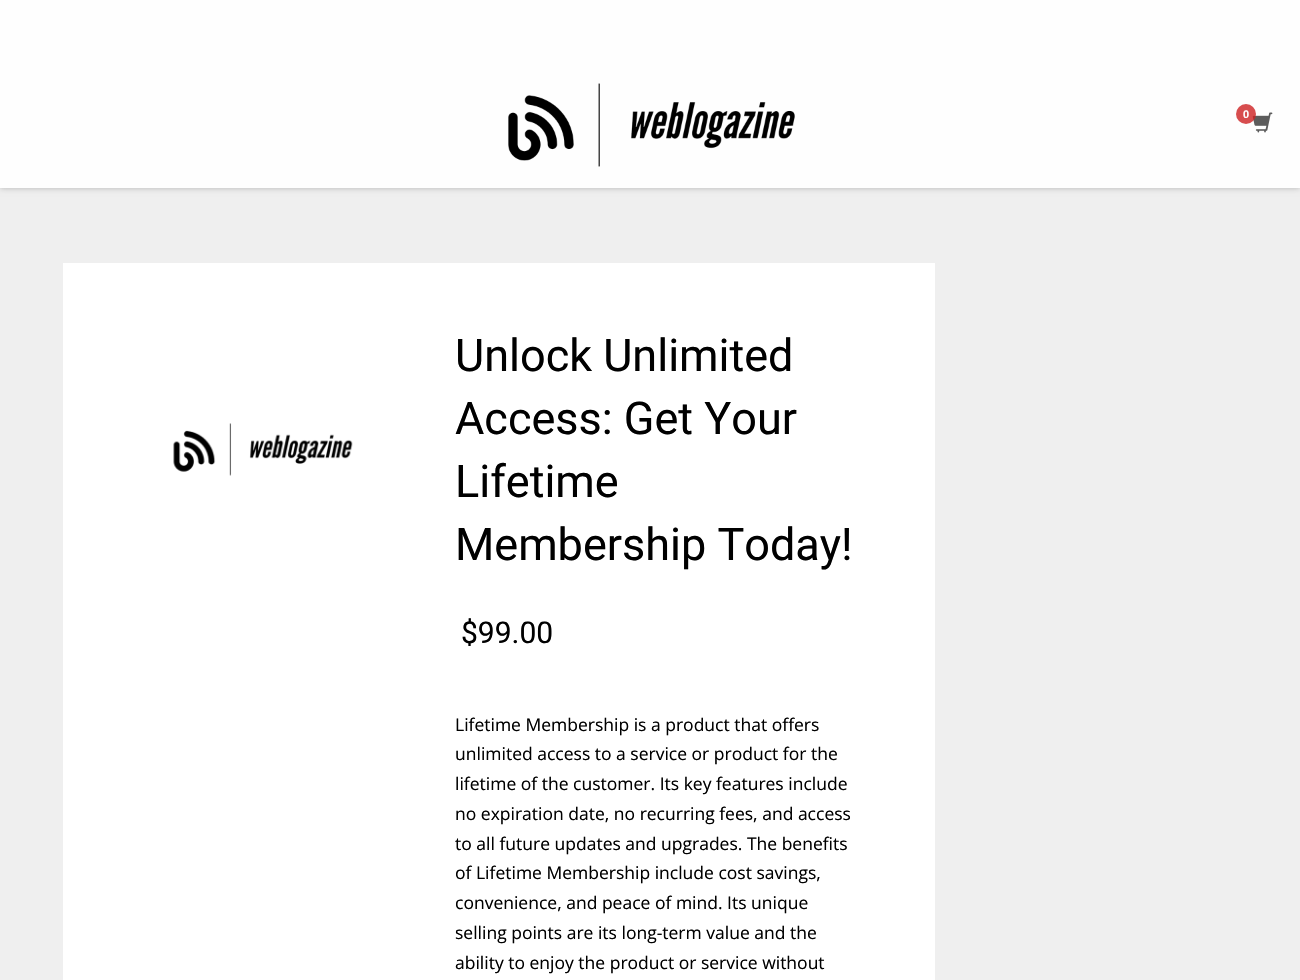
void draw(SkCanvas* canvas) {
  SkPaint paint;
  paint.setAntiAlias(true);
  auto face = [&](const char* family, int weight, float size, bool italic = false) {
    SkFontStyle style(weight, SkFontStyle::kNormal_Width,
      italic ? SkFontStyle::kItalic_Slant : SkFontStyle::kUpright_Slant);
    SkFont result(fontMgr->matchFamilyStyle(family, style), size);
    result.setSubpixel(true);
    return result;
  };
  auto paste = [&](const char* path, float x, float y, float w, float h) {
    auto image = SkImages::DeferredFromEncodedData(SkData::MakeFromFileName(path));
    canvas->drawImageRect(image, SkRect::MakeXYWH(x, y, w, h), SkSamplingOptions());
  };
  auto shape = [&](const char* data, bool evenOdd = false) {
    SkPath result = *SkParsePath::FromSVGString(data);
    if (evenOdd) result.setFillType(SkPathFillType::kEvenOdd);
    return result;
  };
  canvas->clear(0xffefefef);
  canvas->save();
  canvas->clipPath(shape("M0 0H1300V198H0ZM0 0H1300V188H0Z", true), true);
  paint.setColor(0x40000000);
  paint.setMaskFilter(SkMaskFilter::MakeBlur(kNormal_SkBlurStyle, 3));
  canvas->drawRect(SkRect::MakeXYWH(0, 0, 1300, 188), paint);
  paint.setMaskFilter(nullptr);
  canvas->restore();
  paint.setColor(0xe6ffffff);
  canvas->drawRect(SkRect::MakeXYWH(0, 0, 1300, 188), paint);
  paste("img/1.png", 508, 83, 287, 84);
  paste("img/2.png", 1252, 112, 21, 21);
  paint.setColor(0xcccd2122);
  canvas->drawCircle(1246, 114, 10, paint);
  paint.setColor(0xffffffff);
  canvas->drawRect(SkRect::MakeXYWH(63, 263, 872, 717), paint);
  paste("img/3.png", 173, 423, 180, 53);
  auto f0 = face("Liberation Sans", 700, 11);
  canvas->drawString("0", 1243, 118, f0, paint);
  auto f1 = face("Roboto", 400, 45);
  paint.setColor(0xff000000);
  {
    const struct { const char* s; float x, y; } items[] = {
      {"Unlock Unlimited", 455, 371},
      {"Access: Get Your", 455, 434},
      {"Lifetime", 455, 497},
      {"Membership Today!", 455, 560},
    };
    for (auto [s, x, y] : items) {
      canvas->drawString(s, x, y, f1, paint);
    }
  }
  auto f2 = face("Roboto", 400, 30);
  canvas->drawString("$99.00", 461, 643, f2, paint);
  auto f3 = face("Open Sans", 400, 17.5f);
  {
    const struct { const char* s; float x, y; } items[] = {
      {"Lifetime Membership is a product that offers", 455, 731},
      {"unlimited access to a service or product for the", 455, 760},
      {"lifetime of the customer. Its key features include", 455, 790},
      {"no expiration date, no recurring fees, and access", 455, 820},
      {"to all future updates and upgrades. The benefits", 455, 850},
      {"of Lifetime Membership include cost savings,", 455, 879},
      {"convenience, and peace of mind. Its unique", 455, 909},
      {"selling points are its long-term value and the", 455, 939},
      {"ability to enjoy the product or service without", 455, 969},
    };
    for (auto [s, x, y] : items) {
      canvas->drawString(s, x, y, f3, paint);
    }
  }
}
